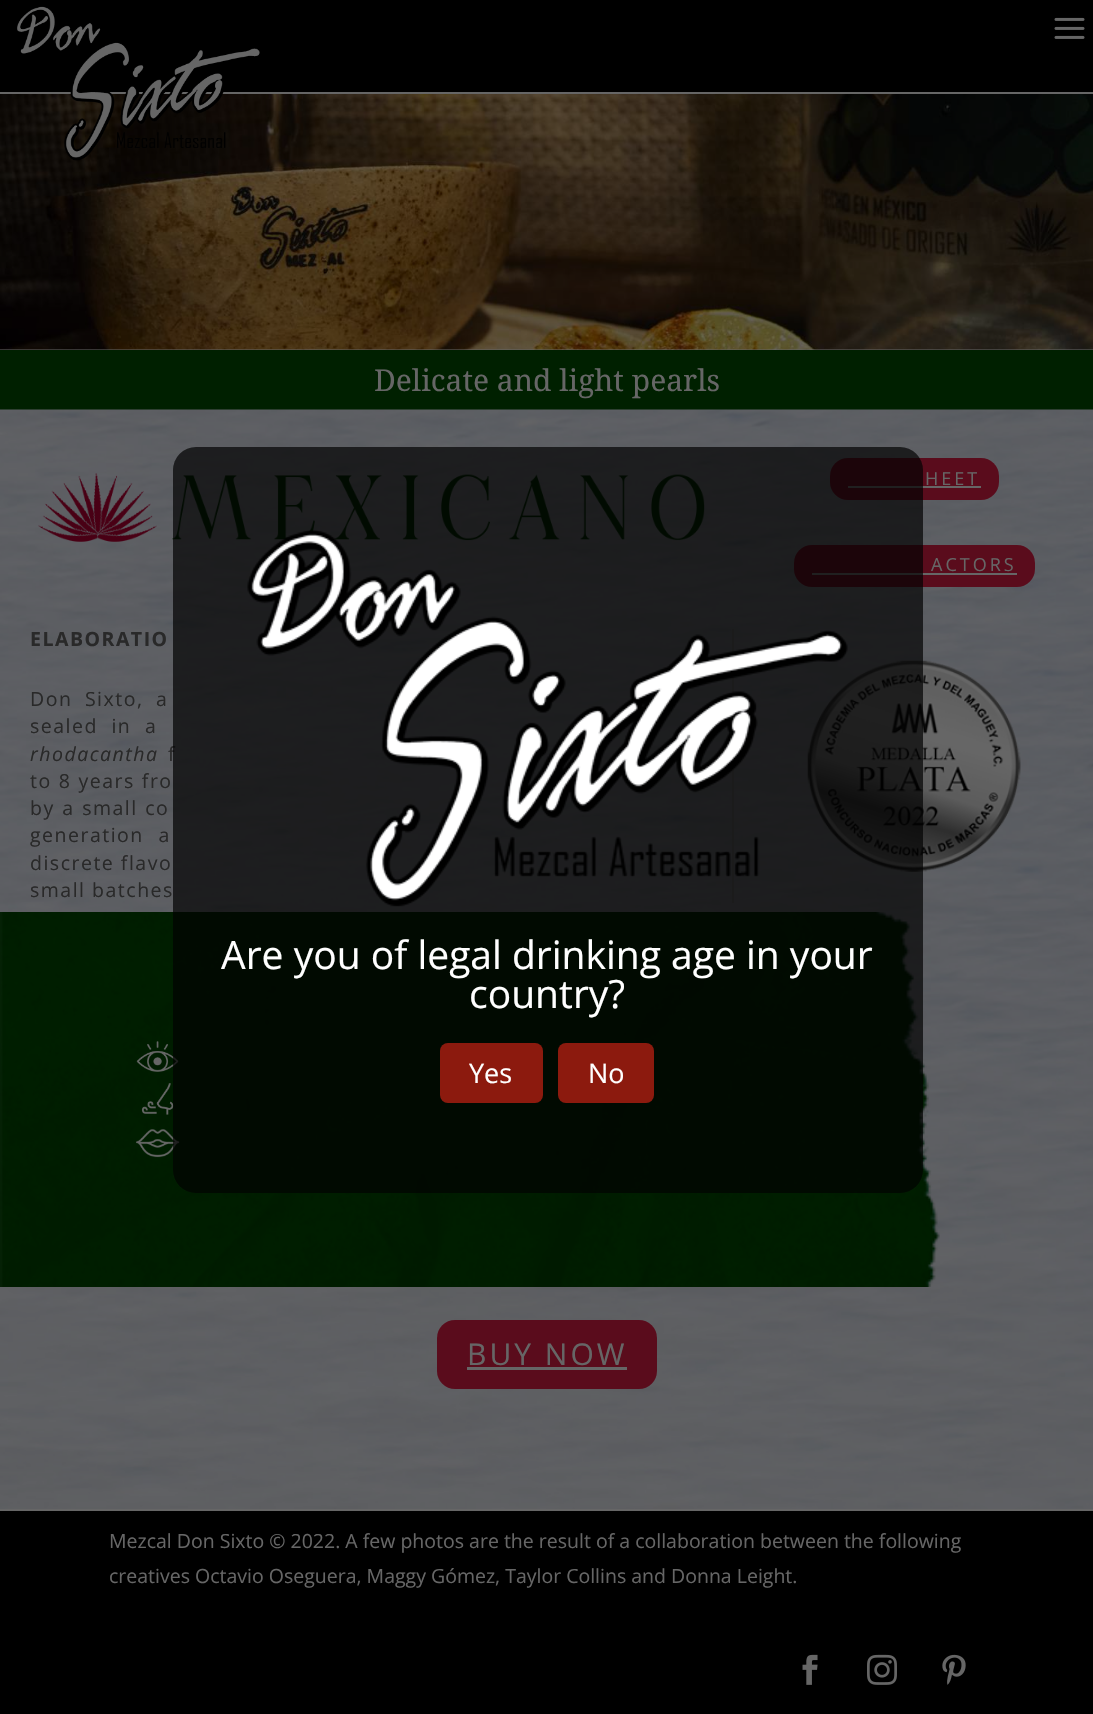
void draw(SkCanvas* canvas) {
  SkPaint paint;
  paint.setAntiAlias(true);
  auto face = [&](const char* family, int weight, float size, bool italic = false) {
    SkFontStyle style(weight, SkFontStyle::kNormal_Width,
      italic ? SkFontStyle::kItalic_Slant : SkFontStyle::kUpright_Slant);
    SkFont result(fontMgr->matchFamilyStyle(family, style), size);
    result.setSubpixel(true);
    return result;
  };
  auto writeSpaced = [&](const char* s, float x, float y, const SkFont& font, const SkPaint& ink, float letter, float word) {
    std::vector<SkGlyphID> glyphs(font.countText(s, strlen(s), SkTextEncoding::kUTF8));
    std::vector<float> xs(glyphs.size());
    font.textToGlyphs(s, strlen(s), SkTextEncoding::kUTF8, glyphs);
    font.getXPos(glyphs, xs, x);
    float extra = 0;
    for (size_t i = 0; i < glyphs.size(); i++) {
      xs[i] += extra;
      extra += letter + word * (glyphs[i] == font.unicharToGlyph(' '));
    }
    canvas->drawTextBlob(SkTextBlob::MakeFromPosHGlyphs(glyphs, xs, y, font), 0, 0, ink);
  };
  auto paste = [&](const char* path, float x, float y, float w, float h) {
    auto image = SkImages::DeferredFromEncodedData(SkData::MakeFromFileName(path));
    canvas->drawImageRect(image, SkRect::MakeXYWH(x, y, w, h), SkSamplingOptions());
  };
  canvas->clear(0xff666666);
  paint.setColor(0xff000000);
  canvas->drawRect(SkRect::MakeXYWH(0, 0, 1093, 92), paint);
  paste("img/3.png", 0, 94, 1093, 256);
  paste("img/1.png", 17, 6, 243, 155);
  paste("img/2.png", 1054, 17, 31, 22);
  paint.setColor(0xff002000);
  canvas->drawRect(SkRect::MakeXYWH(0, 350, 1093, 60), paint);
  paste("img/4.png", 0, 409, 1093, 1100);
  paint.setColor(0xff5a0c1c);
  canvas->drawRoundRect(SkRect::MakeXYWH(830, 458, 169, 42), 18, 18, paint);
  paint.setColor(0xff666666);
  canvas->drawRect(SkRect::MakeXYWH(848, 486, 133, 2), paint);
  paint.setColor(0xff5a0c1c);
  canvas->drawRoundRect(SkRect::MakeXYWH(794, 545, 241, 42), 18, 18, paint);
  paint.setColor(0xff666666);
  canvas->drawRect(SkRect::MakeXYWH(812, 573, 205, 2), paint);
  paste("img/5.png", 807, 660, 214, 212);
  paste("img/6.png", 38, 473, 667, 69);
  paint.setColor(0xff565656);
  canvas->drawRect(SkRect::MakeXYWH(732, 629, 2, 274), paint);
  paste("img/7.png", 0, 912, 940, 375);
  paste("img/8.png", 136, 1041, 43, 31);
  paste("img/9.png", 141, 1083, 33, 32);
  paste("img/10.png", 136, 1129, 44, 29);
  paint.setColor(0xff5a0c1c);
  canvas->drawRoundRect(SkRect::MakeXYWH(437, 1320, 220, 69), 18, 18, paint);
  paint.setColor(0xff666666);
  canvas->drawRect(SkRect::MakeXYWH(467, 1367, 160, 3), paint);
  paint.setColor(0xff000000);
  canvas->drawRect(SkRect::MakeXYWH(0, 1511, 1093, 203), paint);
  paste("img/11.png", 802, 1654, 16, 31);
  paste("img/12.png", 867, 1654, 30, 31);
  paste("img/13.png", 942, 1654, 24, 31);
  auto f0 = face("Noto Serif", 400, 30);
  paint.setColor(0xff666666);
  canvas->drawString("Delicate and light pearls", 374, 391, f0, paint);
  auto f1 = face("Open Sans", 400, 18);
  writeSpaced("HEET", 925, 485, f1, paint, 3, 0);
  writeSpaced("ACTORS", 931, 571, f1, paint, 3, 0);
  auto f2 = face("Open Sans", 700, 19.5f);
  paint.setColor(0xff292929);
  writeSpaced("ELABORATIO", 30, 646, f2, paint, 1.5f, 0);
  auto f3 = face("Open Sans", 400, 19.5f);
  writeSpaced("Don Sixto, a", 30, 706, f3, paint, 1.5f, 6);
  writeSpaced("sealed in a", 30, 733, f3, paint, 1.5f, 7);
  auto f4 = face("Open Sans", 400, 19.5f, true);
  writeSpaced("rhodacantha", 30, 761, f4, paint, 1.5f, 0);
  writeSpaced("f", 168, 761, f3, paint, 1.5f, 3);
  writeSpaced("to 8 years fro", 30, 788, f3, paint, 1.5f, 0.5f);
  writeSpaced("by a small co", 30, 815, f3, paint, 1.5f, 1);
  writeSpaced("generation a", 30, 842, f3, paint, 1.5f, 8);
  writeSpaced("discrete flavo", 30, 870, f3, paint, 1.5f, 0);
  writeSpaced("small batches", 30, 897, f3, paint, 1.5f, 0);
  auto f5 = face("Open Sans", 400, 30);
  paint.setColor(0xff666666);
  writeSpaced("BUY NOW", 467, 1365, f5, paint, 3, 0);
  canvas->drawString("Mezcal Don Sixto © 2022. A few photos are the result of a collaboration between the following", 109, 1548, f3, paint);
  canvas->drawString("creatives Octavio Oseguera, Maggy Gómez, Taylor Collins and Donna Leight.", 109, 1583, f3, paint);
  paint.setColor(0xb3020202);
  canvas->drawRoundRect(SkRect::MakeXYWH(173, 447, 750, 746), 23, 23, paint);
  paste("img/14.png", 247, 530, 601, 377);
  auto f6 = face("Open Sans", 400, 39);
  paint.setColor(0xffffffff);
  canvas->drawString("Are you of legal drinking age in your", 221, 969, f6, paint);
  canvas->drawString("country?", 469, 1008, f6, paint);
  paint.setColor(0xff8c1a0e);
  canvas->drawRoundRect(SkRect::MakeXYWH(440, 1043, 103, 60), 8, 8, paint);
  auto f7 = face("Open Sans", 400, 27);
  paint.setColor(0xffffffff);
  canvas->drawString("Yes", 469, 1083, f7, paint);
  paint.setColor(0xff8c1a0e);
  canvas->drawRoundRect(SkRect::MakeXYWH(558, 1043, 96, 60), 8, 8, paint);
  paint.setColor(0xffffffff);
  canvas->drawString("No", 588, 1083, f7, paint);
}
